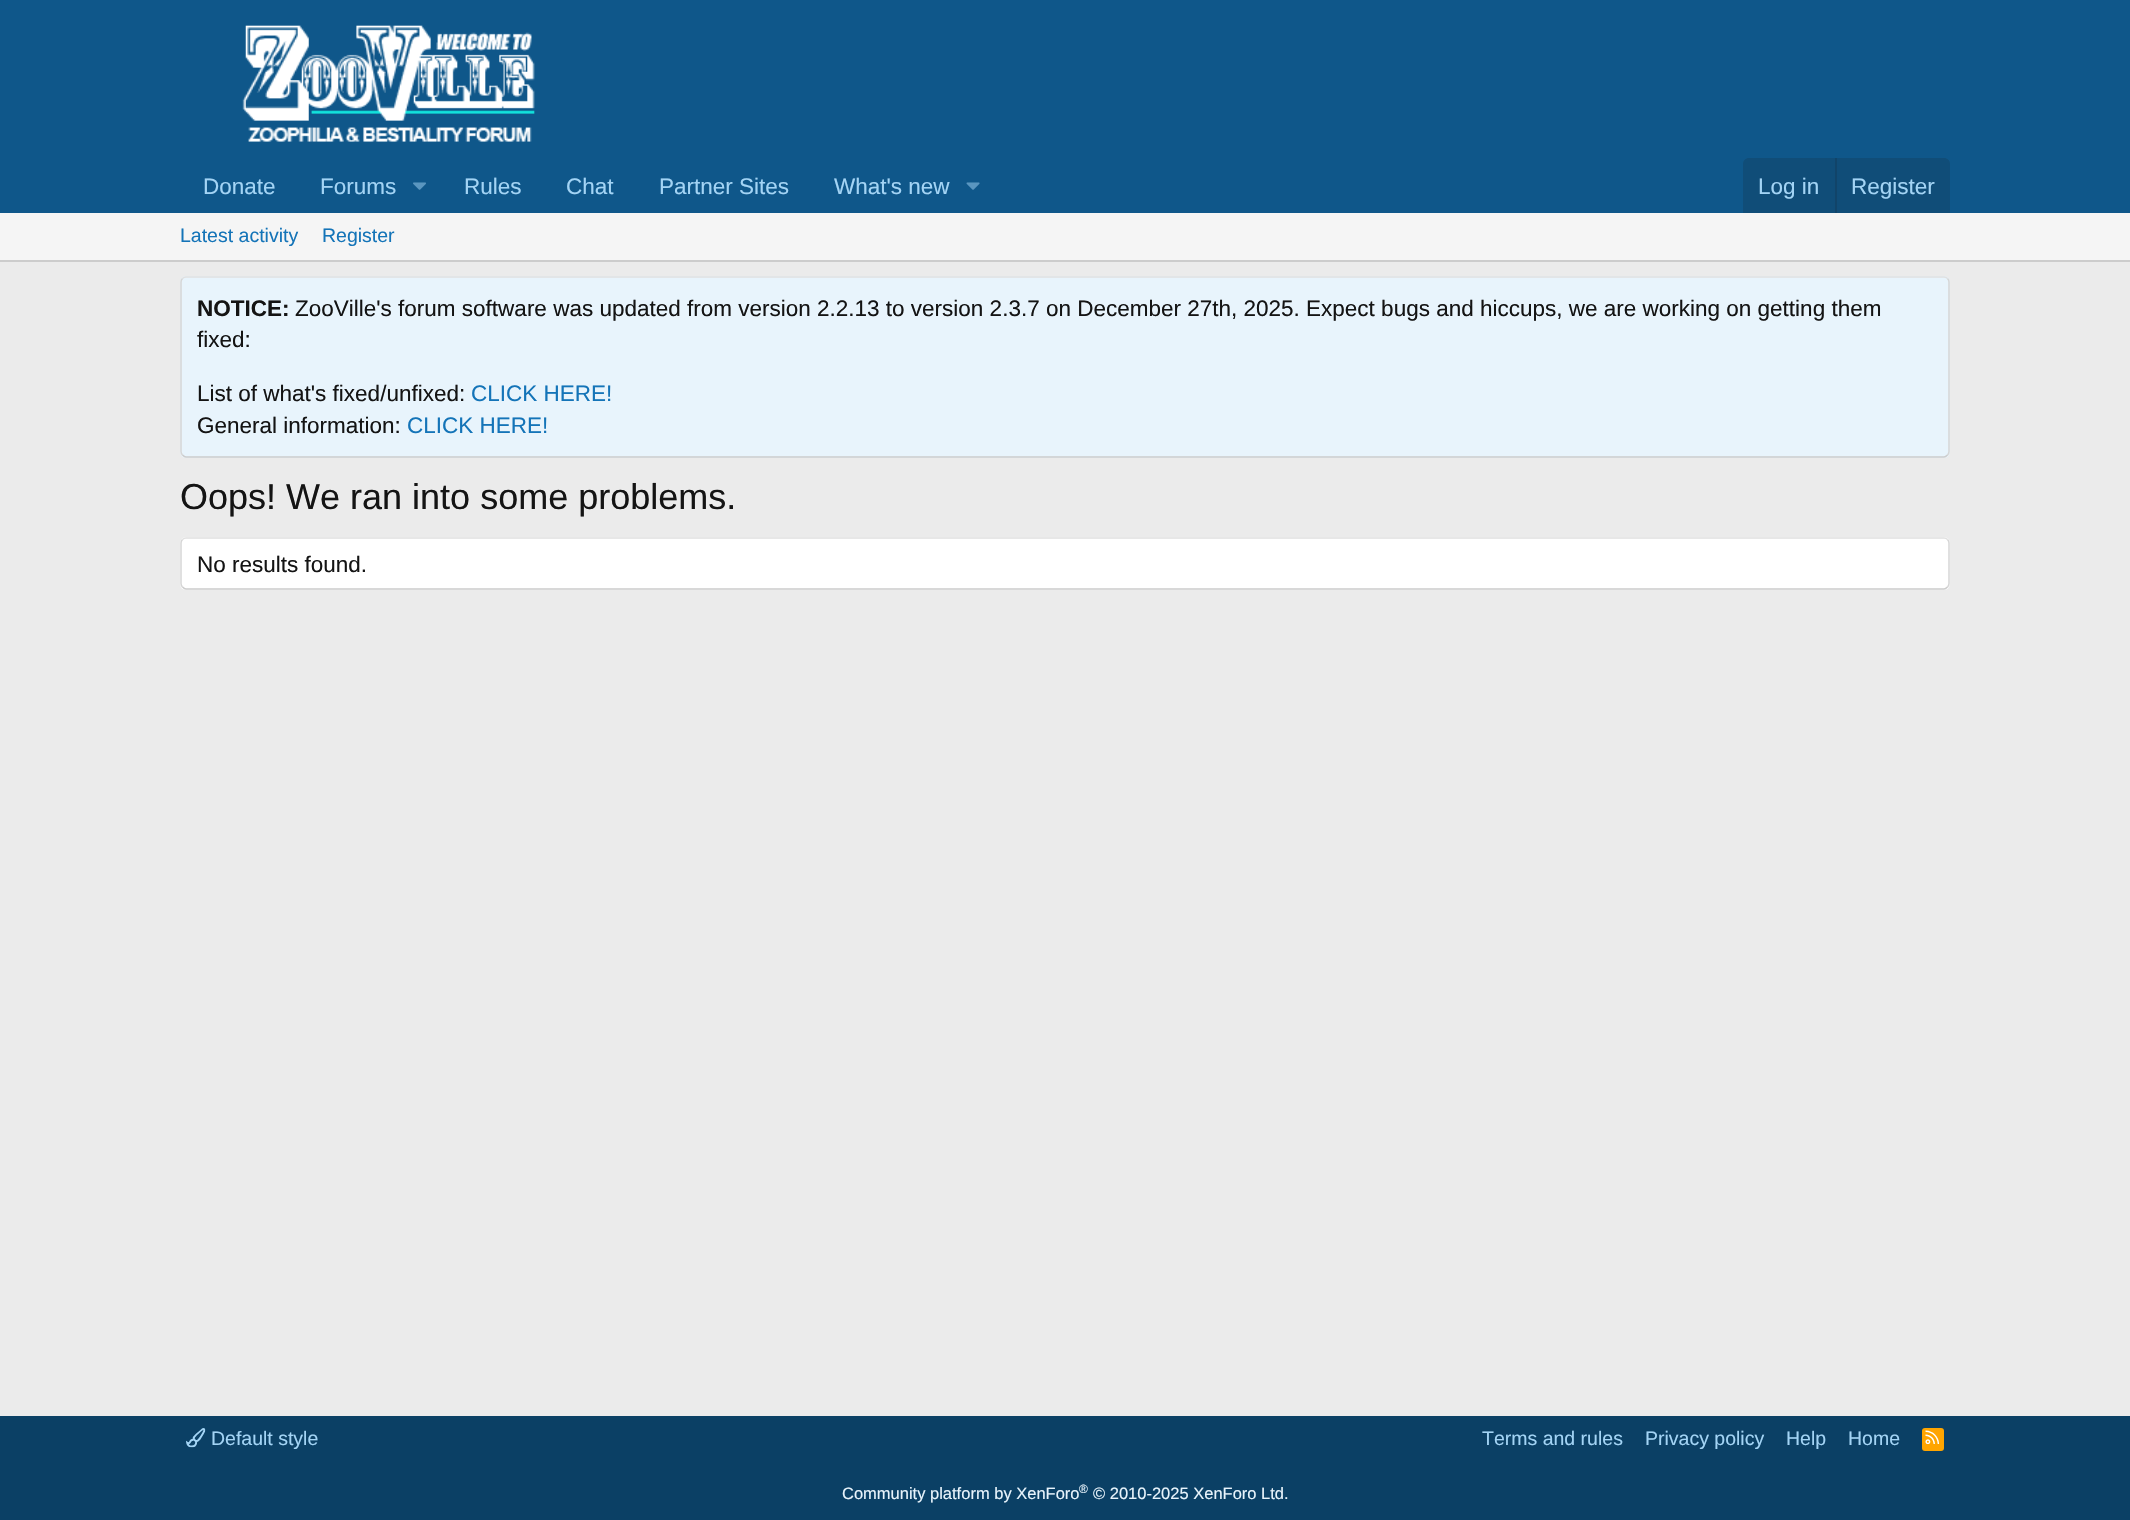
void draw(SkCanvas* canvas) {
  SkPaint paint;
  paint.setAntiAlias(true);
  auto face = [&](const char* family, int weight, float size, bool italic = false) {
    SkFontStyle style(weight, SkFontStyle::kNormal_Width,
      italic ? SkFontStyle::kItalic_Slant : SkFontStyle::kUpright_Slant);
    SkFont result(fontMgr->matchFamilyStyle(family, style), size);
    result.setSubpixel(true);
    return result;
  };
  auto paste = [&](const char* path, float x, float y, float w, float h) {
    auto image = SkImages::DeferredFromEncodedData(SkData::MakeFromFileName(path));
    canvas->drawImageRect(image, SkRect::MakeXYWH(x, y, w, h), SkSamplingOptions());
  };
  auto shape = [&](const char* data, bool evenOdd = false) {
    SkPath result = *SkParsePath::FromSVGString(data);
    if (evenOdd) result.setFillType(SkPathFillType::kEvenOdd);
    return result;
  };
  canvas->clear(0xffebebeb);
  paint.setColor(0xff0f578a);
  canvas->drawRect(SkRect::MakeXYWH(0, 0, 2130, 213), paint);
  paste("img/1.png", 242, 25, 293, 117);
  paste("img/2.png", 413, 182, 13, 8);
  paste("img/3.png", 966, 182, 14, 8);
  paint.setColor(0xff104d78);
  canvas->drawPath(shape("M1749 158H1944C1947.5 158 1950 160.5 1950 164V213H1743V164C1743 160.5 1745.5 158 1749 158Z"), paint);
  {
    const struct { float x, y, w, h; SkColor color; } items[] = {
      {1835, 158, 2, 55, 0xff114469},
      {0, 213, 2130, 47, 0xfff5f5f5},
      {0, 260, 2130, 2, 0xffcccccc},
    };
    for (auto [x, y, w, h, color] : items) {
      paint.setColor(color);
      canvas->drawRect(SkRect::MakeXYWH(x, y, w, h), paint);
    }
  }
  paint.setColor(0xffe8f4fc);
  canvas->drawRoundRect(SkRect::MakeXYWH(180, 276, 1770, 182), 6, 6, paint);
  paint.setStroke(true);
  paint.setStrokeWidth(1.5f);
  paint.setColor(0xffe0e0e0);
  canvas->drawPath(shape("M182.5 278.5C183.5 277.5 184.5 277 186 277H1944C1945.5 277 1946.5 277.5 1947.5 278.5"), paint);
  paint.setColor(0xffd6d6d6);
  canvas->drawPath(shape("M1947.5 278.5C1948.5 279.5 1949 280.5 1949 282V451.5C1949 453 1948.5 454 1947.5 455"), paint);
  paint.setColor(0xffcccccc);
  canvas->drawPath(shape("M1947.5 455C1946.5 456 1945.5 457 1944 457H186C184.5 457 183.5 456 182.5 455"), paint);
  paint.setColor(0xffd6d6d6);
  canvas->drawPath(shape("M182.5 455C181.5 454 181 453 181 451.5V282C181 280.5 181.5 279.5 182.5 278.5"), paint);
  paint.setStroke(false);
  paint.setColor(0xffffffff);
  canvas->drawRoundRect(SkRect::MakeXYWH(180, 537, 1770, 53), 6, 6, paint);
  paint.setStroke(true);
  paint.setColor(0xffe0e0e0);
  canvas->drawPath(shape("M182.5 539.5C183.5 538.5 184.5 538 186 538H1944C1945.5 538 1946.5 538.5 1947.5 539.5"), paint);
  paint.setColor(0xffd6d6d6);
  canvas->drawPath(shape("M1947.5 539.5C1948.5 540.5 1949 541.5 1949 543V583.5C1949 585 1948.5 586 1947.5 587"), paint);
  paint.setColor(0xffcccccc);
  canvas->drawPath(shape("M1947.5 587C1946.5 588 1945.5 589 1944 589H186C184.5 589 183.5 588 182.5 587"), paint);
  paint.setColor(0xffd6d6d6);
  canvas->drawPath(shape("M182.5 587C181.5 586 181 585 181 583.5V543C181 541.5 181.5 540.5 182.5 539.5"), paint);
  paint.setStroke(false);
  paint.setColor(0xff0b4065);
  canvas->drawRect(SkRect::MakeXYWH(0, 1416, 2130, 104), paint);
  paste("img/4.png", 186, 1428, 20, 20);
  paint.setColor(0xffffa500);
  canvas->drawRoundRect(SkRect::MakeXYWH(1922, 1428, 22, 23), 3, 3, paint);
  paste("img/5.png", 1925, 1430, 15, 14);
  auto f0 = face("Liberation Sans", 400, 22.5f);
  paint.setColor(0xffa3d4f5);
  {
    const struct { const char* s; float x, y; } items[] = {
      {"Donate", 203, 194},
      {"Forums", 320, 194},
      {"Rules", 464, 194},
      {"Chat", 566, 194},
      {"Partner Sites", 659, 194},
      {"What's new", 834, 194},
      {"Log in", 1758, 194},
      {"Register", 1851, 194},
    };
    for (auto [s, x, y] : items) {
      canvas->drawString(s, x, y, f0, paint);
    }
  }
  auto f1 = face("Liberation Sans", 400, 19.5f);
  paint.setColor(0xff1474b8);
  canvas->drawString("Latest activity", 180, 242, f1, paint);
  canvas->drawString("Register", 322, 242, f1, paint);
  auto f2 = face("Liberation Sans", 700, 22.5f);
  paint.setColor(0xff141414);
  canvas->drawString("NOTICE:", 197, 316, f2, paint);
  {
    const struct { const char* s; float x, y; } items[] = {
      {"ZooVille's forum software was updated from version 2.2.13 to version 2.3.7 on December 27th, 2025. Expect bugs and hiccups, we are working on getting them", 295, 316},
      {"fixed:", 197, 347},
      {"List of what's fixed/unfixed:", 197, 401},
    };
    for (auto [s, x, y] : items) {
      canvas->drawString(s, x, y, f0, paint);
    }
  }
  paint.setColor(0xff1474b8);
  canvas->drawString("CLICK HERE!", 471, 401, f0, paint);
  paint.setColor(0xff141414);
  canvas->drawString("General information:", 197, 433, f0, paint);
  paint.setColor(0xff1474b8);
  canvas->drawString("CLICK HERE!", 407, 433, f0, paint);
  auto f3 = face("Liberation Sans", 400, 36);
  paint.setColor(0xff141414);
  canvas->drawString("Oops! We ran into some problems.", 180, 509, f3, paint);
  canvas->drawString("No results found.", 197, 572, f0, paint);
  paint.setColor(0xffa3d4f5);
  {
    const struct { const char* s; float x, y; } items[] = {
      {"Default style", 211, 1445},
      {"Terms and rules", 1482, 1445},
      {"Privacy policy", 1645, 1445},
      {"Help", 1786, 1445},
      {"Home", 1848, 1445},
    };
    for (auto [s, x, y] : items) {
      canvas->drawString(s, x, y, f1, paint);
    }
  }
  auto f4 = face("Liberation Sans", 400, 16.5f);
  paint.setColor(0xffe8f4fc);
  canvas->drawString("Community platform by XenForo", 842, 1499, f4, paint);
  auto f5 = face("Liberation Sans", 400, 12);
  canvas->drawString("®", 1079, 1493, f5, paint);
  canvas->drawString("© 2010-2025 XenForo Ltd.", 1093, 1499, f4, paint);
}
